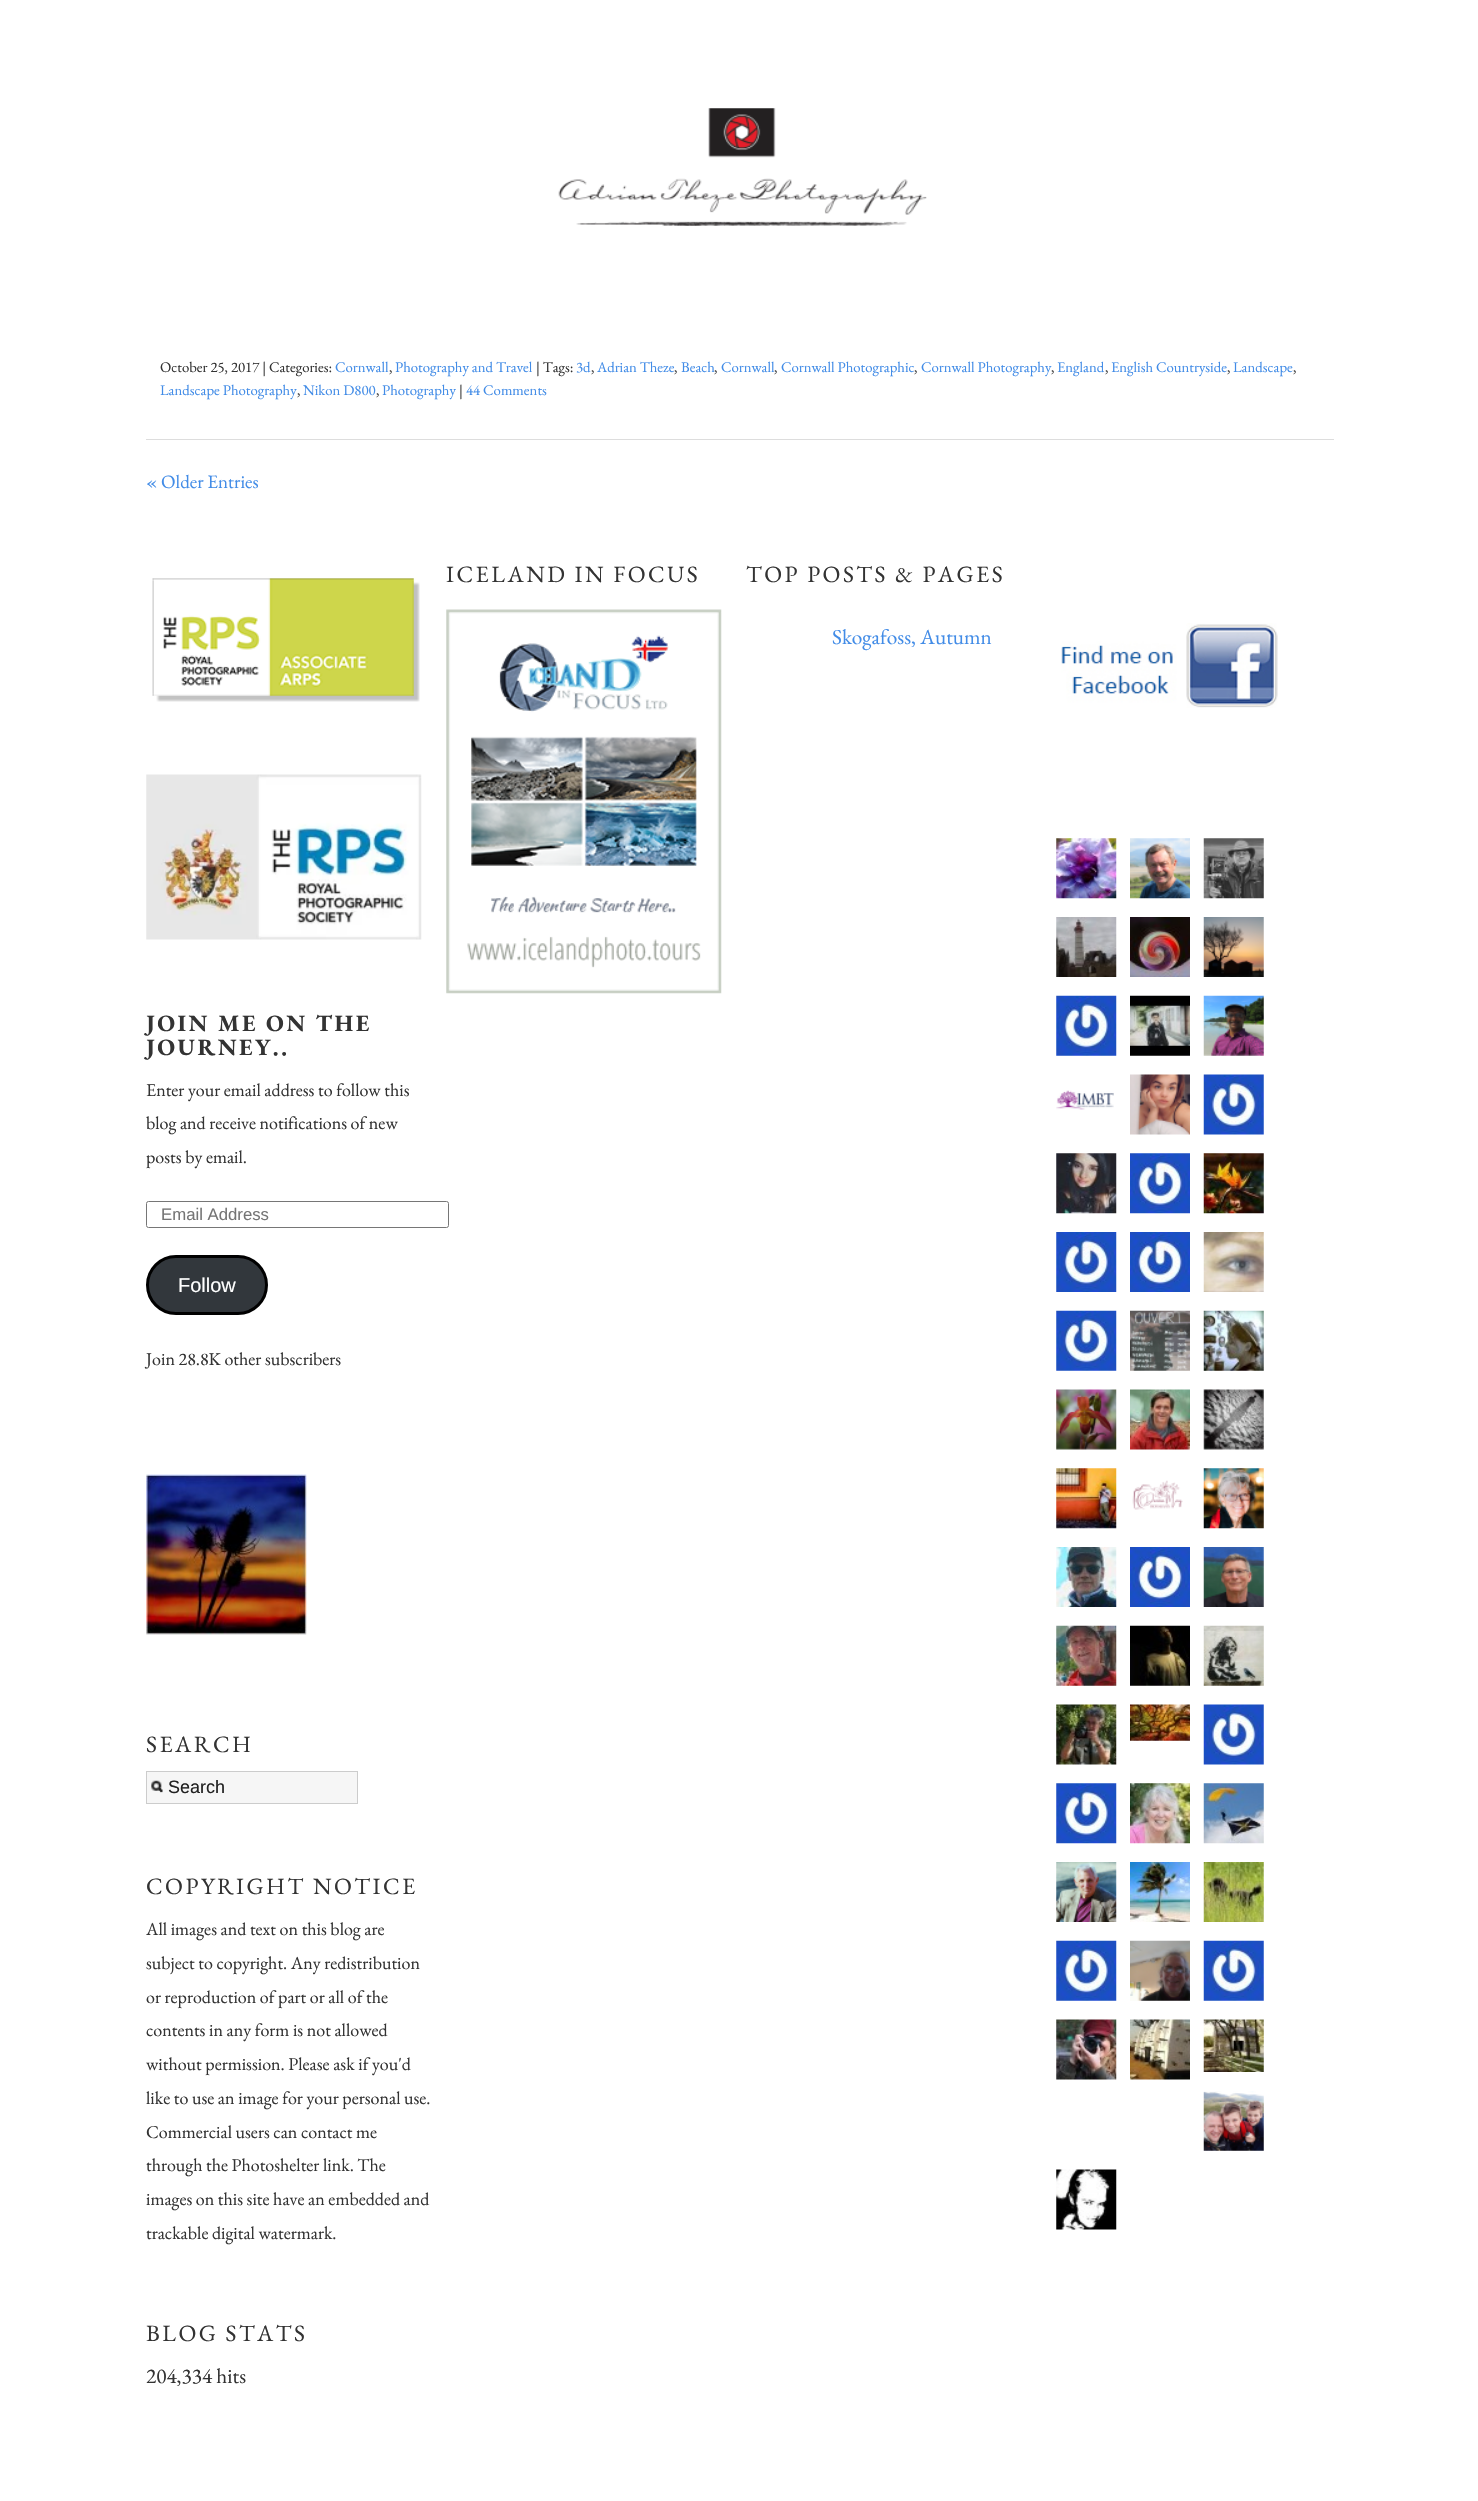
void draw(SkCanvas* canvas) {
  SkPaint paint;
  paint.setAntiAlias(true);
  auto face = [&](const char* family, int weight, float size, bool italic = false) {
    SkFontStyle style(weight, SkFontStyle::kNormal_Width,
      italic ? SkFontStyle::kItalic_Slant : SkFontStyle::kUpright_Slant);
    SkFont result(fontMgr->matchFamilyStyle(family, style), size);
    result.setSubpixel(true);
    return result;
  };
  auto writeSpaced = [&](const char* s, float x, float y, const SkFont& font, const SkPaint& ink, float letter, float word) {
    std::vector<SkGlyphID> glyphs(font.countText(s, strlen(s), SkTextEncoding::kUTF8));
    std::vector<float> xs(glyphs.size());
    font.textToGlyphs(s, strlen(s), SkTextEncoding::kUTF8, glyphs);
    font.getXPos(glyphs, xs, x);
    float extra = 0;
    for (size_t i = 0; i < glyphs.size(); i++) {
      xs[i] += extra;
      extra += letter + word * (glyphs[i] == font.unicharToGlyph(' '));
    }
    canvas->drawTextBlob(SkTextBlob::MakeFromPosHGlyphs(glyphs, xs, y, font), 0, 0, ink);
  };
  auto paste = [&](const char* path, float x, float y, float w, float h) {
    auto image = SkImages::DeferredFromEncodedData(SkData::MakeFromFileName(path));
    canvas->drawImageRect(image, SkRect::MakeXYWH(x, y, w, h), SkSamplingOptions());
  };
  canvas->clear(0xffffffff);
  paste("img/1.png", 558, 108, 369, 118);
  paint.setColor(0xffdddddd);
  canvas->drawRect(SkRect::MakeXYWH(146, 439, 1188, 1), paint);
  paste("img/2.png", 446, 609, 276, 385);
  paste("img/3.png", 152, 578, 268, 124);
  paste("img/4.png", 146, 774, 276, 166);
  paint.setStroke(true);
  paint.setStrokeWidth(1);
  paint.setColor(0xff767676);
  canvas->drawRoundRect(SkRect::MakeXYWH(146.5f, 1201.5f, 302, 26), 2, 2, paint);
  paint.setStroke(false);
  paint.setColor(0xff32373c);
  canvas->drawRoundRect(SkRect::MakeXYWH(147.5f, 1256.5f, 119, 57), 28.5f, 28.5f, paint);
  paint.setStroke(true);
  paint.setStrokeWidth(3);
  paint.setColor(0xff000000);
  canvas->drawRoundRect(SkRect::MakeXYWH(147.5f, 1256.5f, 119, 57), 28.5f, 28.5f, paint);
  paste("img/5.png", 146, 1474, 161, 161);
  paint.setStroke(false);
  paint.setColor(0xfff6f6f6);
  canvas->drawRect(SkRect::MakeXYWH(147, 1772, 210, 31), paint);
  paste("img/6.png", 151, 1780, 12, 13);
  paint.setStroke(true);
  paint.setStrokeWidth(1);
  paint.setColor(0xffcccccc);
  canvas->drawRect(SkRect::MakeXYWH(146.5f, 1771.5f, 211, 32), paint);
  paste("img/7.png", 1061, 623, 217, 85);
  paste("img/8.png", 1056, 838, 61, 61);
  paste("img/9.png", 1130, 838, 60, 61);
  paste("img/10.png", 1203, 838, 61, 61);
  paste("img/11.png", 1056, 917, 61, 60);
  paste("img/12.png", 1130, 917, 60, 60);
  paste("img/13.png", 1203, 917, 61, 60);
  paste("img/14.png", 1056, 995, 61, 61);
  paste("img/15.png", 1130, 995, 60, 61);
  paste("img/16.png", 1203, 995, 61, 61);
  paste("img/17.png", 1056, 1090, 58, 20);
  paste("img/18.png", 1130, 1074, 60, 61);
  paste("img/19.png", 1203, 1074, 61, 61);
  paste("img/20.png", 1056, 1153, 61, 61);
  paste("img/21.png", 1130, 1153, 60, 61);
  paste("img/22.png", 1203, 1153, 61, 61);
  paste("img/23.png", 1056, 1232, 61, 60);
  paste("img/24.png", 1130, 1232, 60, 60);
  paste("img/25.png", 1203, 1232, 61, 60);
  paste("img/14.png", 1056, 1310, 61, 61);
  paste("img/26.png", 1130, 1310, 60, 61);
  paste("img/27.png", 1203, 1310, 61, 61);
  paste("img/28.png", 1056, 1389, 61, 61);
  paste("img/29.png", 1130, 1389, 60, 61);
  paste("img/30.png", 1203, 1389, 61, 61);
  paste("img/31.png", 1056, 1468, 61, 61);
  paste("img/32.png", 1132, 1480, 51, 30);
  paste("img/33.png", 1203, 1468, 61, 61);
  paste("img/34.png", 1056, 1547, 61, 60);
  paste("img/24.png", 1130, 1547, 60, 60);
  paste("img/35.png", 1203, 1547, 61, 60);
  paste("img/36.png", 1056, 1625, 61, 61);
  paste("img/37.png", 1130, 1625, 60, 61);
  paste("img/38.png", 1203, 1625, 61, 61);
  paste("img/39.png", 1056, 1704, 61, 61);
  paste("img/40.png", 1130, 1704, 60, 37);
  paste("img/19.png", 1203, 1704, 61, 61);
  paste("img/41.png", 1056, 1783, 61, 61);
  paste("img/42.png", 1130, 1783, 60, 61);
  paste("img/43.png", 1203, 1783, 61, 61);
  paste("img/44.png", 1056, 1862, 61, 60);
  paste("img/45.png", 1130, 1862, 60, 60);
  paste("img/46.png", 1203, 1862, 61, 60);
  paste("img/14.png", 1056, 1940, 61, 61);
  paste("img/47.png", 1130, 1940, 60, 61);
  paste("img/48.png", 1203, 1940, 61, 61);
  paste("img/49.png", 1056, 2019, 61, 61);
  paste("img/50.png", 1130, 2019, 60, 61);
  paste("img/51.png", 1203, 2019, 61, 53);
  paste("img/52.png", 1203, 2091, 61, 60);
  paste("img/53.png", 1056, 2169, 61, 61);
  auto f0 = face("EB Garamond", 400, 14.75f);
  paint.setStroke(false);
  paint.setColor(0xff333333);
  canvas->drawString("October 25, 2017 | Categories:", 160, 372, f0, paint);
  paint.setColor(0xff428ce7);
  canvas->drawString("Cornwall", 335, 372, f0, paint);
  paint.setColor(0xff333333);
  canvas->drawString(",", 389, 372, f0, paint);
  paint.setColor(0xff428ce7);
  canvas->drawString("Photography and Travel", 395, 372, f0, paint);
  paint.setColor(0xff333333);
  canvas->drawString("| Tags:", 536, 372, f0, paint);
  paint.setColor(0xff428ce7);
  canvas->drawString("3d", 576, 372, f0, paint);
  paint.setColor(0xff333333);
  canvas->drawString(",", 591, 372, f0, paint);
  paint.setColor(0xff428ce7);
  canvas->drawString("Adrian Theze", 597, 372, f0, paint);
  paint.setColor(0xff333333);
  canvas->drawString(",", 674, 372, f0, paint);
  paint.setColor(0xff428ce7);
  canvas->drawString("Beach", 681, 372, f0, paint);
  paint.setColor(0xff333333);
  canvas->drawString(",", 714, 372, f0, paint);
  paint.setColor(0xff428ce7);
  canvas->drawString("Cornwall", 721, 372, f0, paint);
  paint.setColor(0xff333333);
  canvas->drawString(",", 774, 372, f0, paint);
  paint.setColor(0xff428ce7);
  canvas->drawString("Cornwall Photographic", 781, 372, f0, paint);
  paint.setColor(0xff333333);
  canvas->drawString(",", 914, 372, f0, paint);
  paint.setColor(0xff428ce7);
  canvas->drawString("Cornwall Photography", 921, 372, f0, paint);
  paint.setColor(0xff333333);
  canvas->drawString(",", 1051, 372, f0, paint);
  paint.setColor(0xff428ce7);
  canvas->drawString("England", 1057, 372, f0, paint);
  paint.setColor(0xff333333);
  canvas->drawString(",", 1105, 372, f0, paint);
  paint.setColor(0xff428ce7);
  canvas->drawString("English Countryside", 1111, 372, f0, paint);
  paint.setColor(0xff333333);
  canvas->drawString(",", 1227, 372, f0, paint);
  paint.setColor(0xff428ce7);
  canvas->drawString("Landscape", 1233, 372, f0, paint);
  paint.setColor(0xff333333);
  canvas->drawString(",", 1293, 372, f0, paint);
  paint.setColor(0xff428ce7);
  canvas->drawString("Landscape Photography", 160, 395, f0, paint);
  paint.setColor(0xff333333);
  canvas->drawString(",", 297, 395, f0, paint);
  paint.setColor(0xff428ce7);
  canvas->drawString("Nikon D800", 303, 395, f0, paint);
  paint.setColor(0xff333333);
  canvas->drawString(",", 376, 395, f0, paint);
  paint.setColor(0xff428ce7);
  canvas->drawString("Photography", 382, 395, f0, paint);
  paint.setColor(0xff333333);
  canvas->drawString("|", 459, 395, f0, paint);
  paint.setColor(0xff428ce7);
  canvas->drawString("44 Comments", 466, 395, f0, paint);
  auto f1 = face("EB Garamond", 400, 19);
  canvas->drawString("« Older Entries", 146, 488, f1, paint);
  auto f2 = face("EB Garamond", 400, 23.4f);
  paint.setColor(0xff333333);
  writeSpaced("ICELAND IN FOCUS", 446, 582, f2, paint, 2.5f, 0);
  writeSpaced("TOP POSTS & PAGES", 746, 582, f2, paint, 2.5f, 0);
  auto f3 = face("EB Garamond", 400, 21.25f);
  paint.setColor(0xff428ce7);
  canvas->drawString("Skogafoss, Autumn", 832, 644, f3, paint);
  auto f4 = face("EB Garamond", 700, 23.4f);
  paint.setColor(0xff333333);
  writeSpaced("JOIN ME ON THE", 146, 1031, f4, paint, 2.5f, 0);
  writeSpaced("JOURNEY..", 146, 1055, f4, paint, 2.5f, 0);
  auto f5 = face("EB Garamond", 400, 18);
  {
    const struct { const char* s; float x, y; } items[] = {
      {"Enter your email address to follow this", 146, 1096},
      {"blog and receive notifications of new", 146, 1129},
      {"posts by email.", 146, 1163},
    };
    for (auto [s, x, y] : items) {
      canvas->drawString(s, x, y, f5, paint);
    }
  }
  auto f6 = face("Liberation Sans", 400, 16.75f);
  paint.setColor(0xff757575);
  canvas->drawString("Email Address", 161, 1220, f6, paint);
  auto f7 = face("Liberation Sans", 400, 20);
  paint.setColor(0xffffffff);
  canvas->drawString("Follow", 178, 1292, f7, paint);
  paint.setColor(0xff333333);
  canvas->drawString("Join 28.8K other subscribers", 146, 1365, f5, paint);
  writeSpaced("SEARCH", 146, 1752, f2, paint, 2.5f, 0);
  auto f8 = face("Liberation Sans", 400, 18);
  paint.setColor(0xff222222);
  canvas->drawString("Search", 168, 1793, f8, paint);
  paint.setColor(0xff333333);
  writeSpaced("COPYRIGHT NOTICE", 146, 1894, f2, paint, 2.5f, 0);
  {
    const struct { const char* s; float x, y; } items[] = {
      {"All images and text on this blog are", 146, 1935},
      {"subject to copyright. Any redistribution", 146, 1969},
      {"or reproduction of part or all of the", 146, 2003},
      {"contents in any form is not allowed", 146, 2036},
      {"without permission. Please ask if you'd", 146, 2070},
      {"like to use an image for your personal use.", 146, 2104},
      {"Commercial users can contact me", 146, 2138},
      {"through the Photoshelter link. The", 146, 2171},
      {"images on this site have an embedded and", 146, 2205},
      {"trackable digital watermark.", 146, 2239},
    };
    for (auto [s, x, y] : items) {
      canvas->drawString(s, x, y, f5, paint);
    }
  }
  writeSpaced("BLOG STATS", 146, 2341, f2, paint, 2.5f, 0);
  canvas->drawString("204,334 hits", 146, 2383, f3, paint);
}
